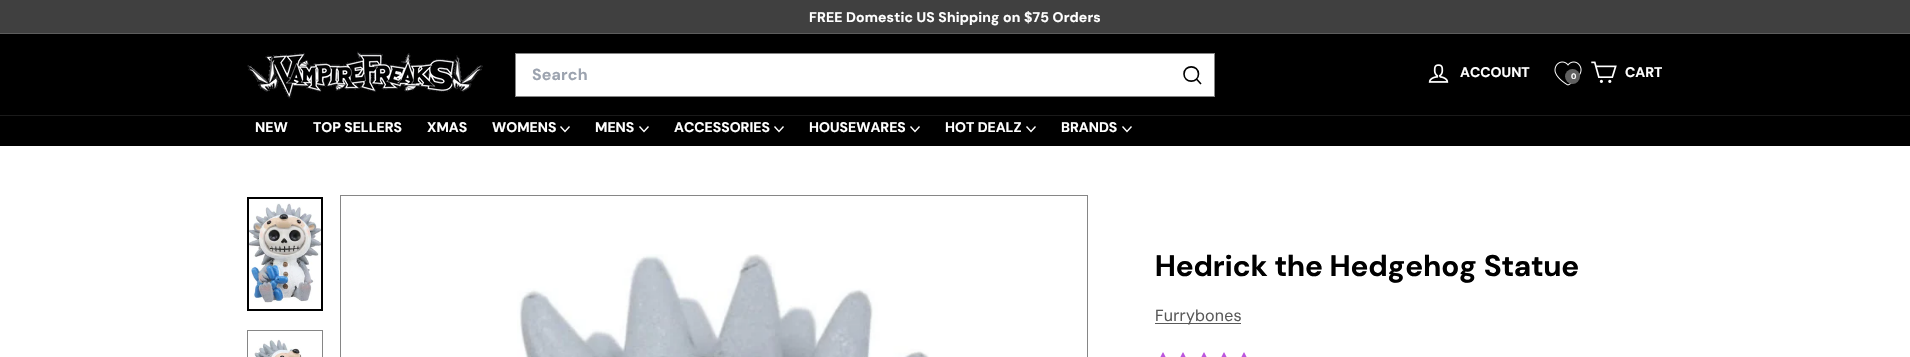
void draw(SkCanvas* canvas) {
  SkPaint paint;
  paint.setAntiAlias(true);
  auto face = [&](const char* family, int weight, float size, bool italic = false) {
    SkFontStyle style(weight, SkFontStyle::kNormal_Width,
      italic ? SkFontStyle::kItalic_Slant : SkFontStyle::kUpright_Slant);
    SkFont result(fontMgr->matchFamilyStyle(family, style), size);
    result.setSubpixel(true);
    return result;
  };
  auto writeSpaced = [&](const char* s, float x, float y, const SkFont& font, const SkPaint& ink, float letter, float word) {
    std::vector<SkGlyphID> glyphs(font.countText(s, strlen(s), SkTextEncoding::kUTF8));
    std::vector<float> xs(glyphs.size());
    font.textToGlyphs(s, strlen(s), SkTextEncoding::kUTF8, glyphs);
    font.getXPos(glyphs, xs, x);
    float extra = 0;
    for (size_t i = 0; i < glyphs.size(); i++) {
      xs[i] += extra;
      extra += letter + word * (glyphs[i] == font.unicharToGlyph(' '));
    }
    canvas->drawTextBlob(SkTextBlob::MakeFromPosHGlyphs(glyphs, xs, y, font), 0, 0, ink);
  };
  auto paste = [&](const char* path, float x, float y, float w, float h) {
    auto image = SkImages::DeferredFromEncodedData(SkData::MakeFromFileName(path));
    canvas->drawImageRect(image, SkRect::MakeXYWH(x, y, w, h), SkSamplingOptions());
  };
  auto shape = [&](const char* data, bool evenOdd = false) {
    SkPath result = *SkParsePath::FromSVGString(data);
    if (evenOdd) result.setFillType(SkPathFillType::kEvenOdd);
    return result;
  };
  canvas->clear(0xffffffff);
  {
    const struct { float x, y, w, h; SkColor color; } items[] = {
      {0, 0, 1910, 33, 0xff404040},
      {0, 33, 1910, 1, 0xff5d5d5d},
      {0, 34, 1910, 81, 0xff000000},
    };
    for (auto [x, y, w, h, color] : items) {
      paint.setColor(color);
      canvas->drawRect(SkRect::MakeXYWH(x, y, w, h), paint);
    }
  }
  paste("img/1.png", 247, 51, 236, 48);
  paint.setColor(0xffffffff);
  canvas->drawRect(SkRect::MakeXYWH(515.5f, 53.5f, 699, 43), paint);
  paint.setStroke(true);
  paint.setStrokeWidth(1);
  paint.setColor(0xff868686);
  canvas->drawRect(SkRect::MakeXYWH(515.5f, 53.5f, 699, 43), paint);
  paint.setStrokeWidth(1.6f);
  paint.setColor(0xff000000);
  canvas->drawPath(shape("M1198.5 74C1198.5 83.5 1184 83.5 1184 74C1184 64.5 1198.5 64.5 1198.5 74M1201 84L1196.5 79"), paint);
  paste("img/2.png", 1428, 64, 21, 19);
  paste("img/3.png", 1554, 61, 28, 25);
  paint.setStroke(false);
  paint.setColor(0xff606060);
  canvas->drawCircle(1572.5f, 76.5f, 7.5f, paint);
  paste("img/4.png", 1591, 61, 26, 22);
  paint.setColor(0xff000000);
  canvas->drawRect(SkRect::MakeXYWH(0, 116, 1910, 30), paint);
  paint.setColor(0xff1a1a1a);
  canvas->drawRect(SkRect::MakeXYWH(0, 115, 1910, 1), paint);
  paint.setStroke(true);
  paint.setStrokeWidth(1.4f);
  paint.setColor(0xffffffff);
  canvas->drawPath(shape("M560.5 126.5L565 131.5L569.5 126.5"), paint);
  canvas->drawPath(shape("M639.5 126.5L644 131.5L648.5 126.5"), paint);
  canvas->drawPath(shape("M774.5 126.5L779 131.5L783.5 126.5"), paint);
  canvas->drawPath(shape("M910.5 126.5L915 131.5L919.5 126.5"), paint);
  canvas->drawPath(shape("M1026.5 126.5L1031 131.5L1035.5 126.5"), paint);
  canvas->drawPath(shape("M1122.5 126.5L1127 131.5L1131.5 126.5"), paint);
  paste("img/5.png", 249, 203, 72, 100);
  paint.setStrokeWidth(2);
  paint.setColor(0xff000000);
  canvas->drawRect(SkRect::MakeXYWH(248, 198, 74, 112), paint);
  paint.setStrokeWidth(1);
  paint.setColor(0xff868686);
  canvas->drawRect(SkRect::MakeXYWH(247.5f, 330.5f, 75, 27), paint);
  paste("img/6.png", 254, 339, 48, 18);
  canvas->drawRect(SkRect::MakeXYWH(340.5f, 195.5f, 747, 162), paint);
  paste("img/7.png", 517, 254, 412, 103);
  paint.setStroke(false);
  paint.setColor(0xff595959);
  canvas->drawRect(SkRect::MakeXYWH(1155, 323, 86, 1), paint);
  paste("img/8.png", 1160, 352, 6, 5);
  paste("img/8.png", 1180, 352, 6, 5);
  paste("img/8.png", 1201, 352, 6, 5);
  paste("img/8.png", 1221, 352, 6, 5);
  paste("img/8.png", 1241, 352, 6, 5);
  auto f0 = face("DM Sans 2", 700, 14);
  paint.setColor(0xffffffff);
  writeSpaced("FREE Domestic US Shipping on $75 Orders", 809, 22, f0, paint, 0.15f, 0);
  auto f1 = face("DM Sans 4", 700, 16);
  paint.setColor(0xff9ca3af);
  writeSpaced("Search", 532, 80, f1, paint, 0.15f, 0);
  paint.setColor(0xffffffff);
  canvas->drawString("ACCOUNT", 1460, 77, f0, paint);
  auto f2 = face("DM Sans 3", 700, 8);
  writeSpaced("0", 1571, 79, f2, paint, 0.15f, 0);
  {
    const struct { const char* s; float x, y; } items[] = {
      {"CART", 1625, 77},
      {"NEW", 255, 132},
      {"TOP SELLERS", 313, 132},
      {"XMAS", 427, 132},
      {"WOMENS", 492, 132},
      {"MENS", 595, 132},
      {"ACCESSORIES", 674, 132},
      {"HOUSEWARES", 809, 132},
      {"HOT DEALZ", 945, 132},
      {"BRANDS", 1061, 132},
    };
    for (auto [s, x, y] : items) {
      canvas->drawString(s, x, y, f0, paint);
    }
  }
  auto f3 = face("DM Sans", 700, 29.75f);
  paint.setColor(0xff000000);
  writeSpaced("Hedrick the Hedgehog Statue", 1155, 276, f3, paint, 0.3f, 0);
  auto f4 = face("DM Sans", 400, 16);
  paint.setColor(0xff595959);
  writeSpaced("Furrybones", 1155, 321, f4, paint, 0.15f, 0);
}
